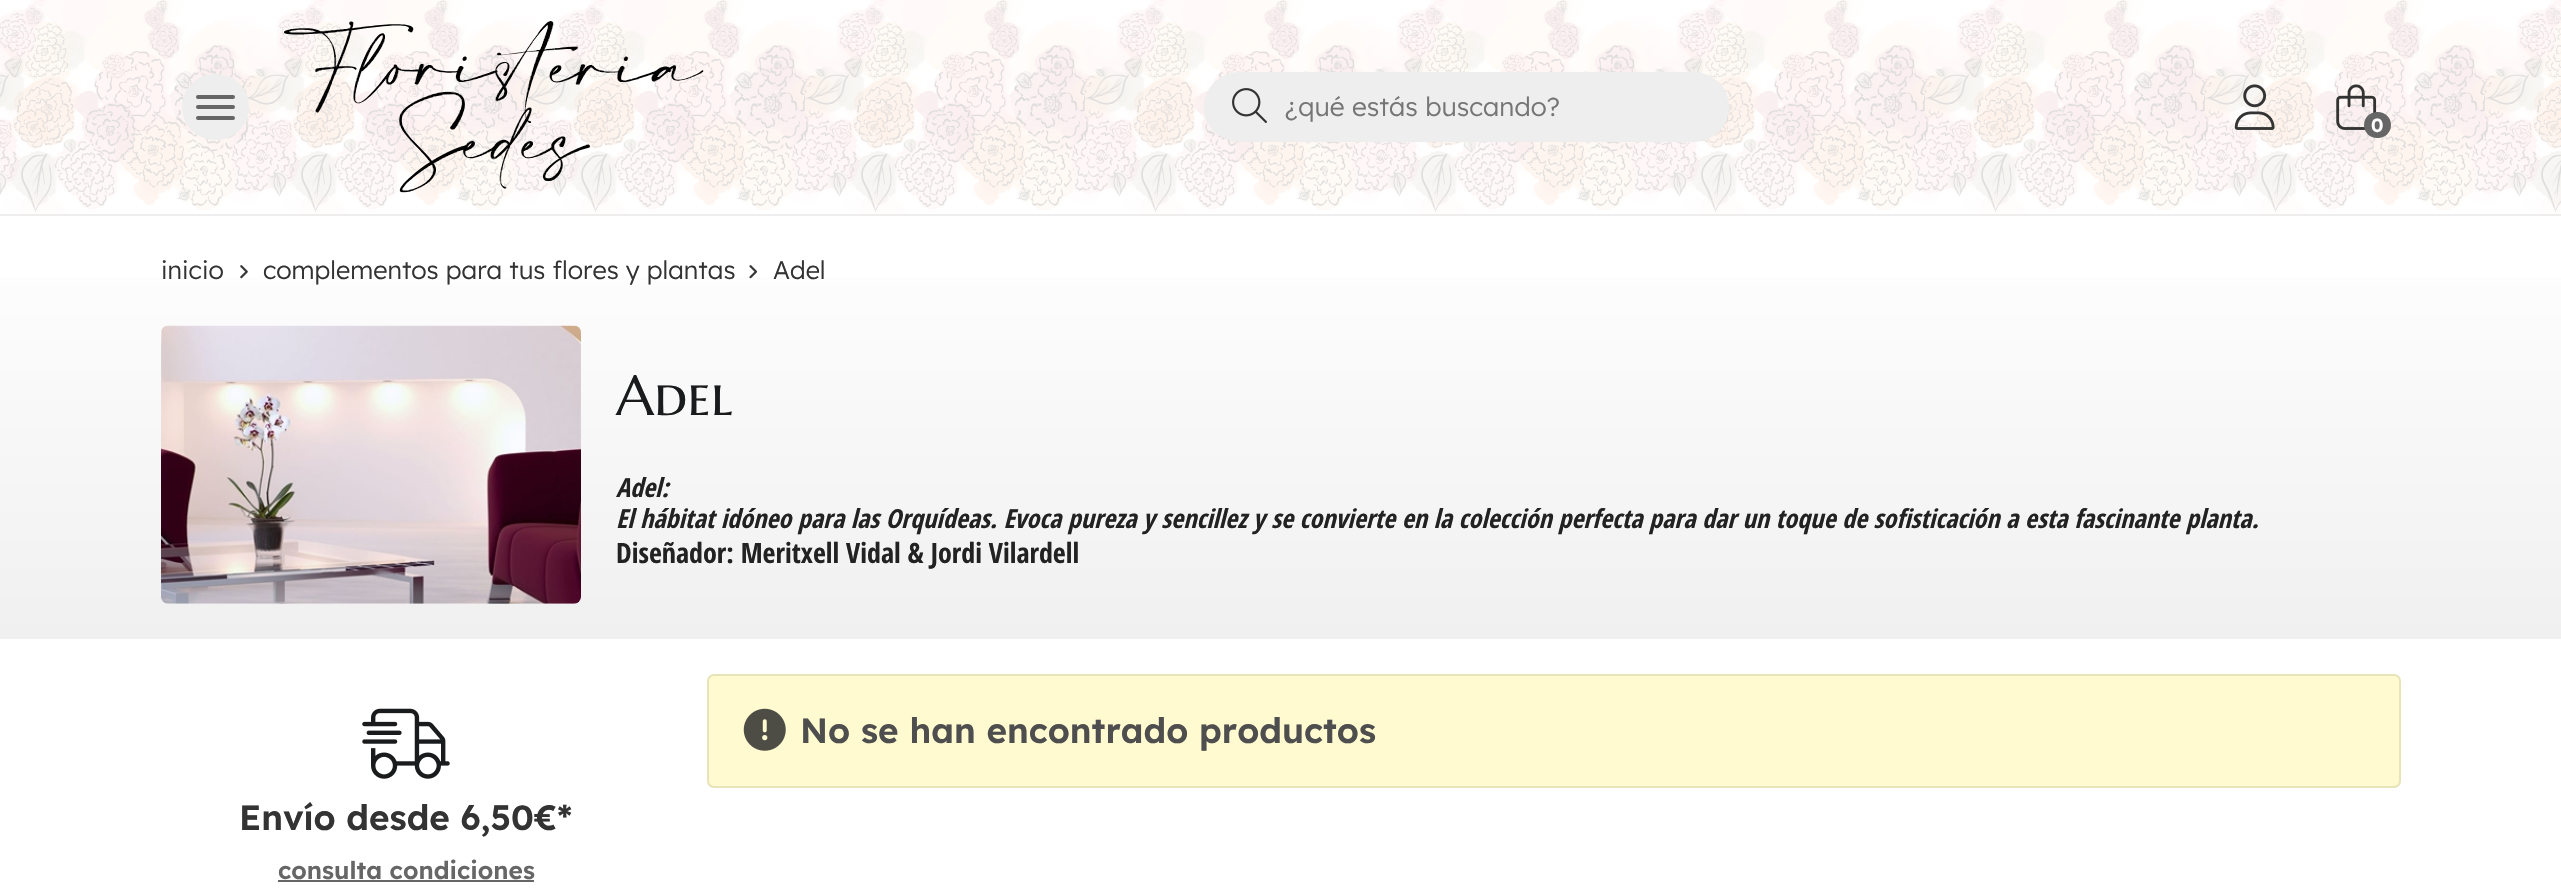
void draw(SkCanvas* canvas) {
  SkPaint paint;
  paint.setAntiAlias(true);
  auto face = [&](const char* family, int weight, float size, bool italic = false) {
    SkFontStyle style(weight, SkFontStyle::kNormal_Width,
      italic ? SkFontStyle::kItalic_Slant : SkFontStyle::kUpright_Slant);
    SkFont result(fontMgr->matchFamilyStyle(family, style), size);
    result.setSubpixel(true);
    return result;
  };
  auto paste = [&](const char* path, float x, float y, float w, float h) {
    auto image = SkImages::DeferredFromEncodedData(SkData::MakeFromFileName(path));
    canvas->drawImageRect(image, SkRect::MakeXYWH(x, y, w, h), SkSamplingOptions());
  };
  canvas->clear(0xffffffff);
  paste("img/1.png", 0, 0, 2561, 214);
  paint.setColor(0xffeeeeee);
  canvas->drawRect(SkRect::MakeXYWH(0, 214, 2561, 2), paint);
  canvas->drawRoundRect(SkRect::MakeXYWH(182, 74, 67, 66), 33, 33, paint);
  paint.setColor(0xff666666);
  canvas->drawRoundRect(SkRect::MakeXYWH(196, 95, 39, 4), 2, 2, paint);
  canvas->drawRoundRect(SkRect::MakeXYWH(196, 105, 39, 4), 2, 2, paint);
  canvas->drawRoundRect(SkRect::MakeXYWH(196, 116, 39, 4), 2, 2, paint);
  paste("img/2.png", 284, 21, 420, 172);
  paint.setColor(0xffeeeeee);
  canvas->drawRoundRect(SkRect::MakeXYWH(1204, 72, 525, 70), 35, 35, paint);
  paste("img/3.png", 1232, 88, 35, 35);
  paste("img/4.png", 2234, 84, 41, 46);
  paste("img/5.png", 2336, 84, 41, 46);
  paint.setColor(0xff666666);
  canvas->drawRoundRect(SkRect::MakeXYWH(2364, 112, 27, 26), 13, 13, paint);
  {
    const SkColor colors[] = {0x00f0f0f0, 0xfff0f0f0};
    const float stops[] = {0, 1};
    const SkPoint ends[] = {{1281, 215}, {1281, 639}};
    paint.setShader(SkGradientShader::MakeLinear(ends, colors, stops, 2, SkTileMode::kClamp));
    paint.setAlpha(255);
  }
  canvas->drawRect(SkRect::MakeXYWH(0, 277, 2561, 362), paint);
  paste("img/6.png", 240, 265, 8, 14);
  paste("img/7.png", 749, 265, 9, 14);
  paste("img/8.png", 161, 325, 420, 279);
  paint.setShader(nullptr);
  paint.setColor(0xfffffad0);
  canvas->drawRoundRect(SkRect::MakeXYWH(708, 675, 1692, 112), 6, 6, paint);
  paint.setStroke(true);
  paint.setStrokeWidth(2);
  paint.setColor(0xffe8e3b9);
  canvas->drawRoundRect(SkRect::MakeXYWH(708, 675, 1692, 112), 6, 6, paint);
  paste("img/9.png", 743, 708, 43, 43);
  paste("img/10.png", 362, 708, 88, 71);
  paint.setStroke(false);
  paint.setColor(0xff666666);
  canvas->drawRect(SkRect::MakeXYWH(278, 880, 256, 2), paint);
  auto f0 = face("Lexend", 300, 26.25f);
  paint.setColor(0xff757575);
  canvas->drawString("¿qué estás buscando?", 1285, 116, f0, paint);
  auto f1 = face("Lexend", 600, 19);
  paint.setColor(0xffffffff);
  canvas->drawString("0", 2371, 132, f1, paint);
  auto f2 = face("Lexend", 300, 25.25f);
  paint.setColor(0xff333333);
  {
    const struct { const char* s; float x, y; } items[] = {
      {"inicio", 161, 279},
      {"complementos para tus flores y plantas", 263, 279},
      {"Adel", 773, 279},
    };
    for (auto [s, x, y] : items) {
      canvas->drawString(s, x, y, f2, paint);
    }
  }
  auto f3 = face("Marcellus SC", 400, 56);
  paint.setColor(0xff1a1b1c);
  canvas->drawString("Adel", 616, 415, f3, paint);
  auto f4 = face("Open Sans Condensed", 700, 26.25f, true);
  paint.setColor(0xff222222);
  canvas->drawString("Adel:", 616, 497, f4, paint);
  canvas->drawString("El hábitat idóneo para las Orquídeas. Evoca pureza y sencillez y se convierte en la colección perfecta para dar un toque de sofisticación a esta fascinante planta.", 616, 528, f4, paint);
  auto f5 = face("Open Sans Condensed", 700, 28);
  canvas->drawString("Diseñador: Meritxell Vidal & Jordi Vilardell", 616, 563, f5, paint);
  auto f6 = face("Lexend", 600, 35);
  paint.setColor(0xff4e4e4e);
  canvas->drawString("No se han encontrado productos", 800, 743, f6, paint);
  paint.setColor(0xff333333);
  canvas->drawString("Envío desde 6,50€*", 239, 830, f6, paint);
  auto f7 = face("Lexend", 600, 24.5f);
  paint.setColor(0xff666666);
  canvas->drawString("consulta condiciones", 278, 879, f7, paint);
}
